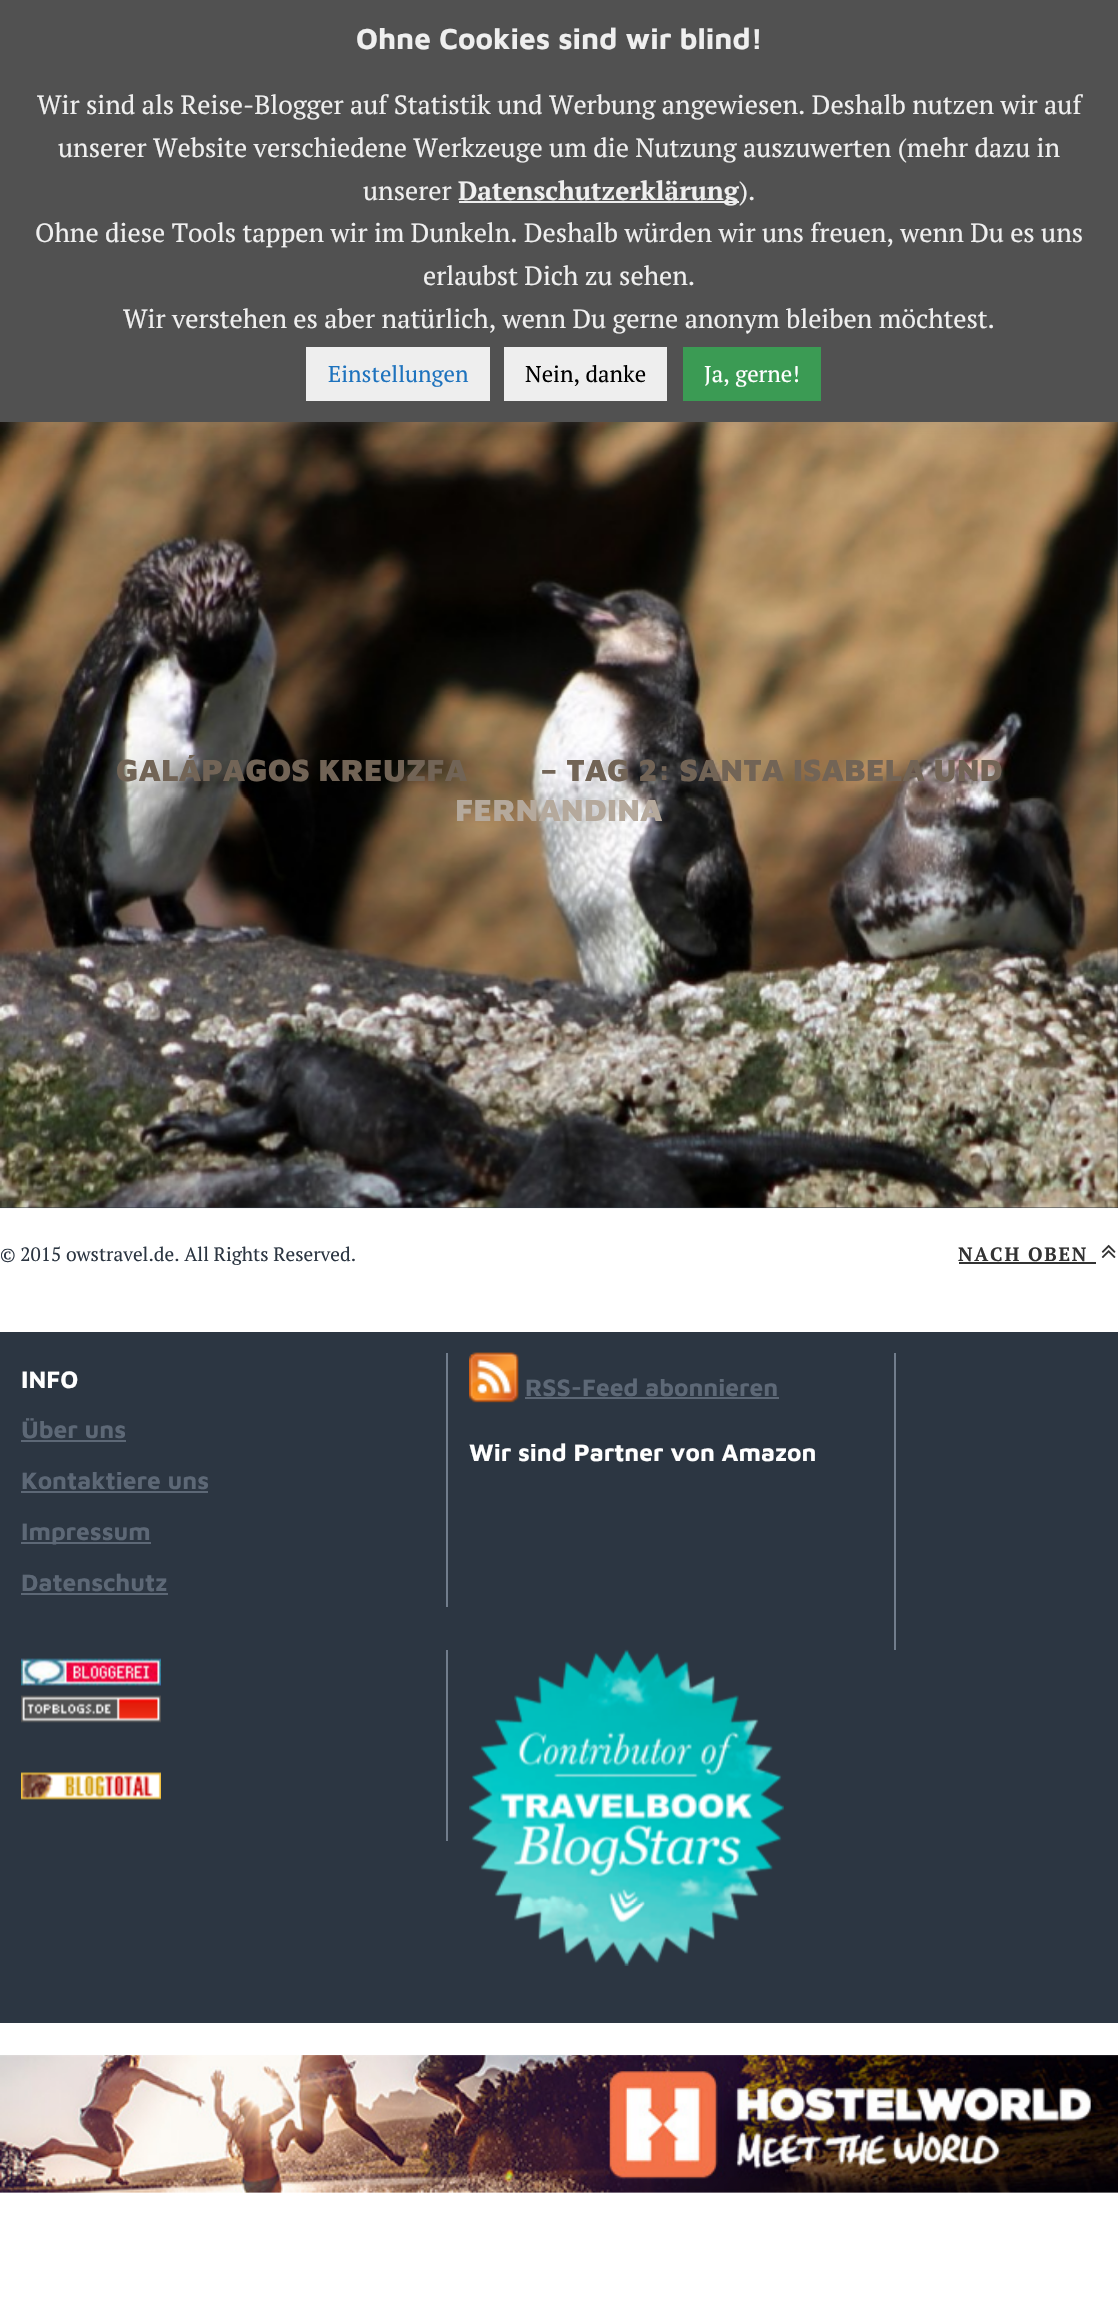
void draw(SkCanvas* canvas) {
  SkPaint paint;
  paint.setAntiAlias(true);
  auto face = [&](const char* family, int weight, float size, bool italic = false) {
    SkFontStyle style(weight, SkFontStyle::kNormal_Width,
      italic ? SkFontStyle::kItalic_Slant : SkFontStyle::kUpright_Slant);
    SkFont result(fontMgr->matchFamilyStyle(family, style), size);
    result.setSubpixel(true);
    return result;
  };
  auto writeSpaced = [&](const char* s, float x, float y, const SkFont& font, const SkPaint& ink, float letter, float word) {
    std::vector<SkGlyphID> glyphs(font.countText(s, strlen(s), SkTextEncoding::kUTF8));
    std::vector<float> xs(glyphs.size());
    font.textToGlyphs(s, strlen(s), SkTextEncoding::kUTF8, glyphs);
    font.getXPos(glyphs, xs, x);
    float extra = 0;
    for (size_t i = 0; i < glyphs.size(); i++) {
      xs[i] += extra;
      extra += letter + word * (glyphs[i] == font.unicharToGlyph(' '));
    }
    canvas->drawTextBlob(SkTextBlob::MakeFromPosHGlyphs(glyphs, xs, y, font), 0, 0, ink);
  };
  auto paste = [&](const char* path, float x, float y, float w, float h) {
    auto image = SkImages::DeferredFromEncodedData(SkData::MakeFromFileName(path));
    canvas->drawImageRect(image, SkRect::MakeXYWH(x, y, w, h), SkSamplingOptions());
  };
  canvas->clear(0xffffffff);
  paint.setColor(0xff2c3642);
  canvas->drawRect(SkRect::MakeXYWH(0, 422, 1118, 786), paint);
  paste("img/1.png", 0, 422, 1118, 787);
  paint.setColor(0x4dacabab);
  paint.setMaskFilter(SkMaskFilter::MakeBlur(kNormal_SkBlurStyle, 9));
  canvas->drawRect(SkRect::MakeXYWH(0, -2, 1118, 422), paint);
  paint.setMaskFilter(nullptr);
  {
    const struct { float x, y, w, h; SkColor color; } items[] = {
      {0, 0, 1118, 422, 0xff515151},
      {459, 201, 280, 2, 0xffeeeeee},
      {306, 347, 184, 54, 0xffeeeeee},
      {504, 347, 163, 54, 0xffeeeeee},
      {683, 347, 138, 54, 0xff3b9b54},
      {959, 1262, 137, 2, 0xff333333},
    };
    for (auto [x, y, w, h, color] : items) {
      paint.setColor(color);
      canvas->drawRect(SkRect::MakeXYWH(x, y, w, h), paint);
    }
  }
  paste("img/2.png", 1101, 1244, 15, 14);
  {
    const struct { float x, y, w, h; SkColor color; } items[] = {
      {0, 1332, 1118, 691, 0xff2c3642},
      {446, 1353, 2, 254, 0xff717d8c},
      {21, 1440, 105, 2, 0xff5d6876},
      {21, 1491, 187, 2, 0xff5d6876},
      {21, 1542, 130, 2, 0xff5d6876},
      {21, 1593, 147, 2, 0xff5d6876},
      {894, 1353, 2, 297, 0xff717d8c},
    };
    for (auto [x, y, w, h, color] : items) {
      paint.setColor(color);
      canvas->drawRect(SkRect::MakeXYWH(x, y, w, h), paint);
    }
  }
  paste("img/3.png", 469, 1352, 50, 51);
  paint.setColor(0xff5d6876);
  canvas->drawRect(SkRect::MakeXYWH(525, 1397, 254, 2), paint);
  paint.setColor(0xff717d8c);
  canvas->drawRect(SkRect::MakeXYWH(446, 1650, 2, 191), paint);
  paste("img/4.png", 21, 1658, 140, 28);
  paste("img/5.png", 21, 1695, 140, 28);
  paste("img/6.png", 21, 1772, 140, 28);
  paste("img/7.png", 469, 1649, 315, 317);
  paste("img/8.png", 0, 2055, 1118, 138);
  auto f0 = face("Maven Pro", 700, 29.75f);
  paint.setColor(0xffefefef);
  canvas->drawString("Ohne Cookies sind wir blind!", 356, 49, f0, paint);
  auto f1 = face("PT Serif", 400, 26.25f);
  {
    const struct { const char* s; float x, y; } items[] = {
      {"Wir sind als Reise-Blogger auf Statistik und Werbung angewiesen. Deshalb nutzen wir auf", 37, 114},
      {"unserer Website verschiedene Werkzeuge um die Nutzung auszuwerten (mehr dazu in", 58, 157},
      {"unserer", 363, 200},
    };
    for (auto [s, x, y] : items) {
      canvas->drawString(s, x, y, f1, paint);
    }
  }
  auto f2 = face("PT Serif", 700, 26.25f);
  canvas->drawString("Datenschutzerklärung", 458, 200, f2, paint);
  {
    const struct { const char* s; float x, y; } items[] = {
      {").", 739, 200},
      {"Ohne diese Tools tappen wir im Dunkeln. Deshalb würden wir uns freuen, wenn Du es uns", 35, 242},
      {"erlaubst Dich zu sehen.", 423, 285},
      {"Wir verstehen es aber natürlich, wenn Du gerne anonym bleiben möchtest.", 123, 328},
    };
    for (auto [s, x, y] : items) {
      canvas->drawString(s, x, y, f1, paint);
    }
  }
  auto f3 = face("PT Serif", 400, 22.75f);
  paint.setColor(0xff1e73be);
  canvas->drawString("Einstellungen", 328, 382, f3, paint);
  paint.setColor(0xff000000);
  canvas->drawString("Nein, danke", 525, 382, f3, paint);
  paint.setColor(0xffffffff);
  canvas->drawString("Ja, gerne!", 704, 382, f3, paint);
  auto f4 = face("Maven Pro", 900, 31.5f);
  paint.setColor(0xff726456);
  canvas->drawString("GALÁPAGOS KREUZFA", 116, 781, f4, paint);
  canvas->drawString("– TAG 2: SANTA ISABELA UND", 540, 781, f4, paint);
  paint.setColor(0xffb5a99c);
  canvas->drawString("FERNANDINA", 455, 821, f4, paint);
  auto f5 = face("PT Serif", 400, 19.25f);
  paint.setColor(0xff2c3642);
  canvas->drawString("© 2015 owstravel.de. All Rights Reserved.", 0, 1261, f5, paint);
  auto f6 = face("PT Serif", 700, 19.25f);
  paint.setColor(0xff333333);
  writeSpaced("NACH OBEN", 958, 1261, f6, paint, 1.75f, 0);
  auto f7 = face("Maven Pro", 700, 24.5f);
  paint.setColor(0xffffffff);
  canvas->drawString("INFO", 21, 1388, f7, paint);
  paint.setColor(0xff5d6876);
  {
    const struct { const char* s; float x, y; } items[] = {
      {"Über uns", 21, 1438},
      {"Kontaktiere uns", 21, 1489},
      {"Impressum", 21, 1540},
      {"Datenschutz", 21, 1591},
      {"RSS-Feed abonnieren", 525, 1396},
    };
    for (auto [s, x, y] : items) {
      canvas->drawString(s, x, y, f7, paint);
    }
  }
  paint.setColor(0xffffffff);
  canvas->drawString("Wir sind Partner von Amazon", 469, 1461, f7, paint);
}
